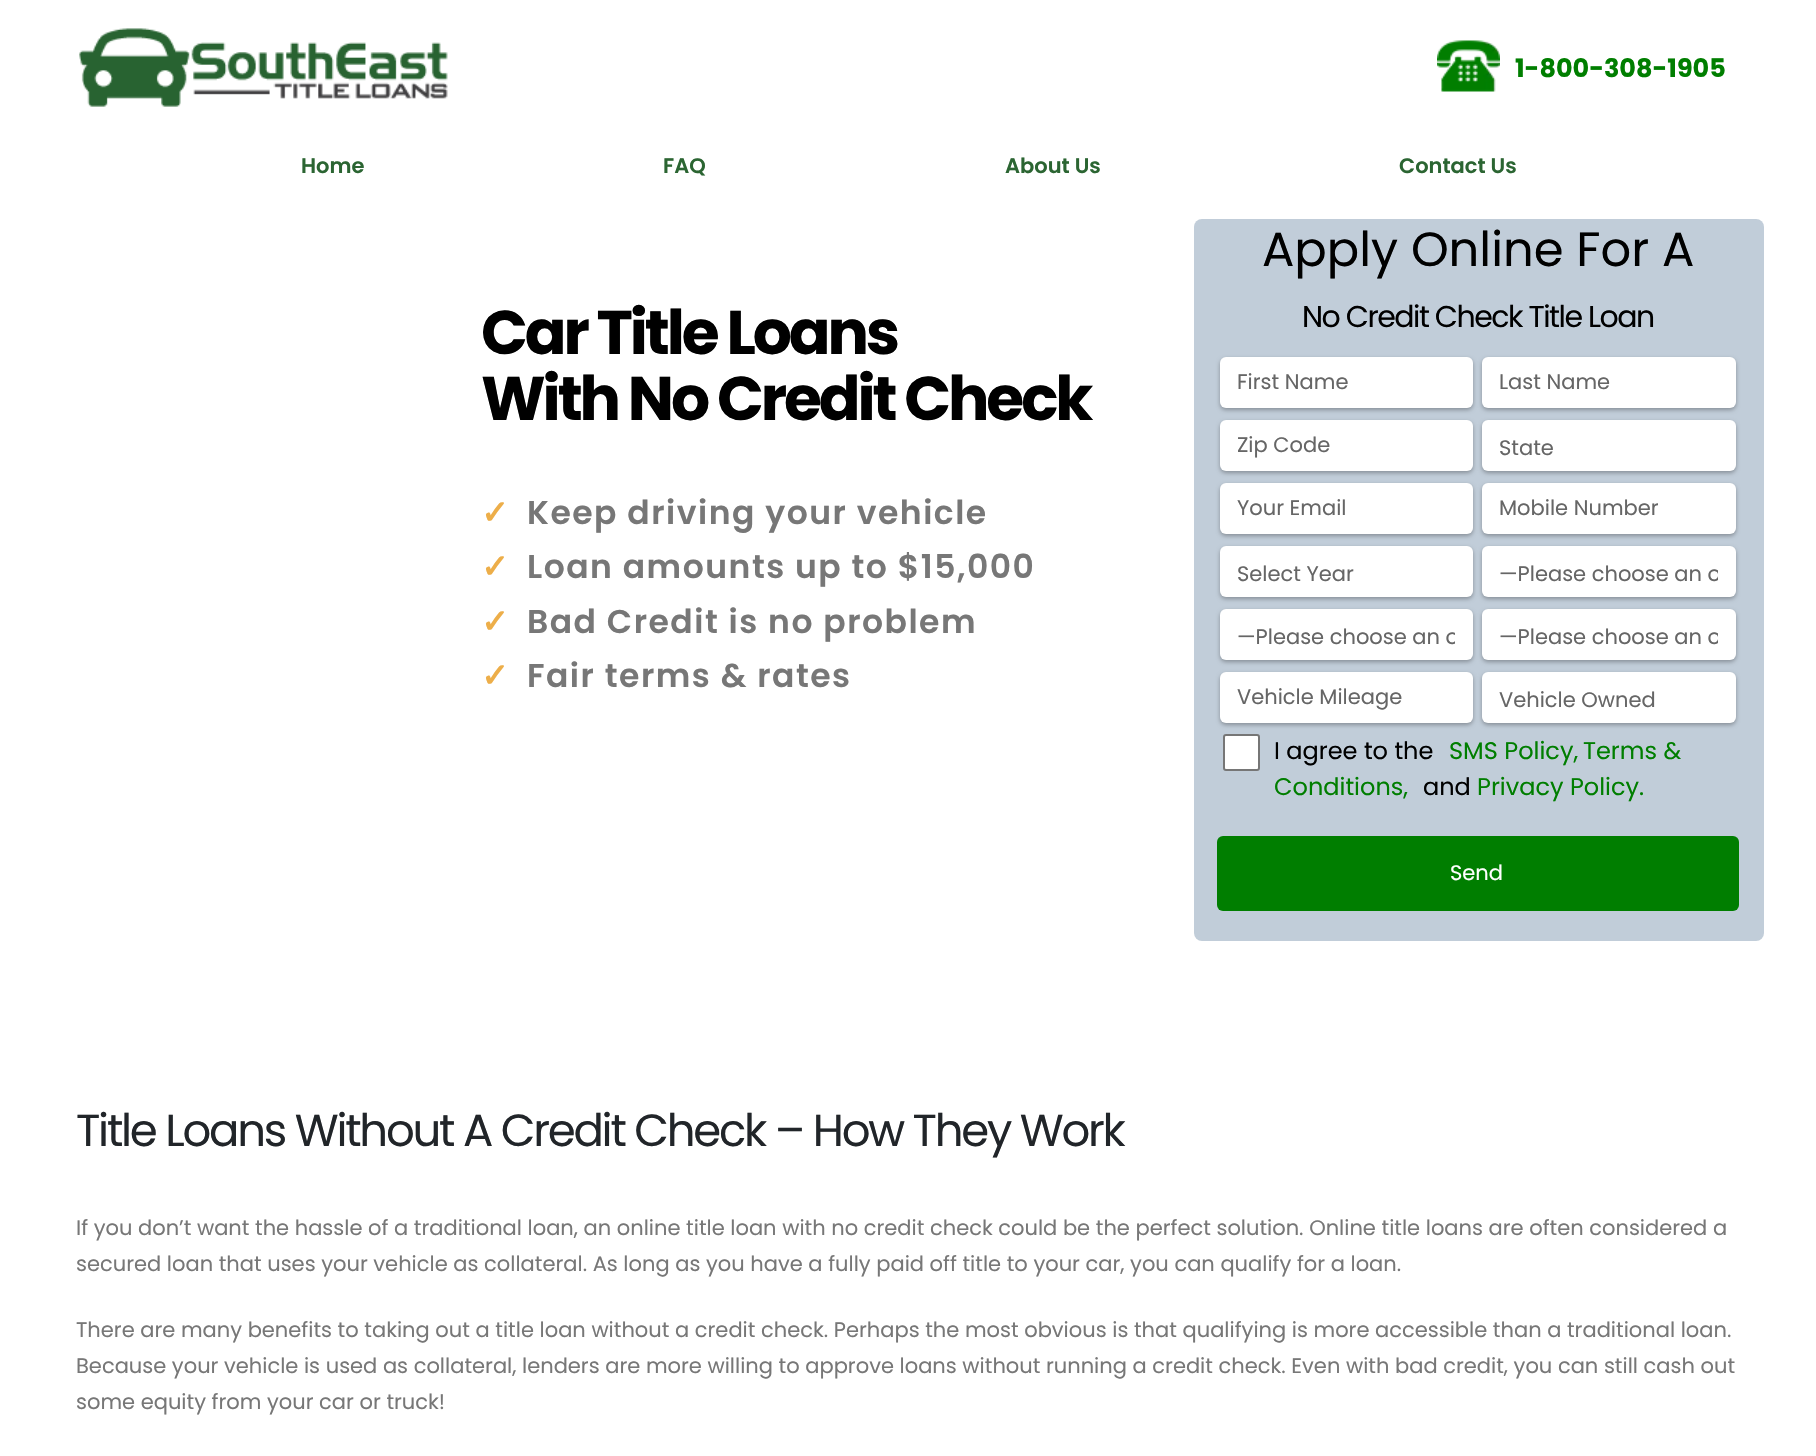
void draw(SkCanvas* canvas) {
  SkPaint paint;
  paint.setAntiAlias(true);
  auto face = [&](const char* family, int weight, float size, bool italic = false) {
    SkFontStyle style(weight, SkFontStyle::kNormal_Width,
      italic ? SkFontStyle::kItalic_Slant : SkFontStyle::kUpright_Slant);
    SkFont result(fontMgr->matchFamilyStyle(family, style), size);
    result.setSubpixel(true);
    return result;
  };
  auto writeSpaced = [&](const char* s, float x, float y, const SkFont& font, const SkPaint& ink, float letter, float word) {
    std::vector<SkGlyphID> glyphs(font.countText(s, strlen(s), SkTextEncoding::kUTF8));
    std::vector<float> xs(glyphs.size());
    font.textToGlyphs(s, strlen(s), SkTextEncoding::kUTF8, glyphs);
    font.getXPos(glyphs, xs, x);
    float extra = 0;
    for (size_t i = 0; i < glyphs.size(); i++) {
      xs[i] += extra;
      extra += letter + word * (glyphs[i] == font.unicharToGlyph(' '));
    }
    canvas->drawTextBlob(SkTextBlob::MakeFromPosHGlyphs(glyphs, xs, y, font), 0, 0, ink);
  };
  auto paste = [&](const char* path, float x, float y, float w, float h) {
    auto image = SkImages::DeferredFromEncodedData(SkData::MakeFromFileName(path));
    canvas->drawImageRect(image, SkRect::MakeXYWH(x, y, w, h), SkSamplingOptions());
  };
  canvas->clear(0xffffffff);
  paste("img/1.png", 79, 28, 369, 79);
  paste("img/2.png", 1437, 40, 63, 52);
  paint.setColor(0xffc1cdd9);
  canvas->drawRoundRect(SkRect::MakeXYWH(1194, 219, 570, 722), 8, 8, paint);
  paint.setColor(0x4d000000);
  paint.setMaskFilter(SkMaskFilter::MakeBlur(kNormal_SkBlurStyle, 2));
  canvas->drawRoundRect(SkRect::MakeXYWH(1220, 359, 253, 51), 6, 6, paint);
  paint.setMaskFilter(nullptr);
  paint.setColor(0xffffffff);
  canvas->drawRoundRect(SkRect::MakeXYWH(1220, 357, 253, 51), 6, 6, paint);
  paint.setColor(0x4d000000);
  paint.setMaskFilter(SkMaskFilter::MakeBlur(kNormal_SkBlurStyle, 2));
  canvas->drawRoundRect(SkRect::MakeXYWH(1482, 359, 254, 51), 6, 6, paint);
  paint.setMaskFilter(nullptr);
  paint.setColor(0xffffffff);
  canvas->drawRoundRect(SkRect::MakeXYWH(1482, 357, 254, 51), 6, 6, paint);
  paint.setColor(0x4d000000);
  paint.setMaskFilter(SkMaskFilter::MakeBlur(kNormal_SkBlurStyle, 2));
  canvas->drawRoundRect(SkRect::MakeXYWH(1220, 422, 253, 51), 6, 6, paint);
  paint.setMaskFilter(nullptr);
  paint.setColor(0xffffffff);
  canvas->drawRoundRect(SkRect::MakeXYWH(1220, 420, 253, 51), 6, 6, paint);
  paint.setColor(0x4d000000);
  paint.setMaskFilter(SkMaskFilter::MakeBlur(kNormal_SkBlurStyle, 2));
  canvas->drawRoundRect(SkRect::MakeXYWH(1482, 422, 254, 51), 6, 6, paint);
  paint.setMaskFilter(nullptr);
  paint.setColor(0xffffffff);
  canvas->drawRoundRect(SkRect::MakeXYWH(1482, 420, 254, 51), 6, 6, paint);
  paint.setColor(0x4d000000);
  paint.setMaskFilter(SkMaskFilter::MakeBlur(kNormal_SkBlurStyle, 2));
  canvas->drawRoundRect(SkRect::MakeXYWH(1220, 485, 253, 51), 6, 6, paint);
  paint.setMaskFilter(nullptr);
  paint.setColor(0xffffffff);
  canvas->drawRoundRect(SkRect::MakeXYWH(1220, 483, 253, 51), 6, 6, paint);
  paint.setColor(0x4d000000);
  paint.setMaskFilter(SkMaskFilter::MakeBlur(kNormal_SkBlurStyle, 2));
  canvas->drawRoundRect(SkRect::MakeXYWH(1482, 485, 254, 51), 6, 6, paint);
  paint.setMaskFilter(nullptr);
  paint.setColor(0xffffffff);
  canvas->drawRoundRect(SkRect::MakeXYWH(1482, 483, 254, 51), 6, 6, paint);
  paint.setColor(0x4d000000);
  paint.setMaskFilter(SkMaskFilter::MakeBlur(kNormal_SkBlurStyle, 2));
  canvas->drawRoundRect(SkRect::MakeXYWH(1220, 548, 253, 51), 6, 6, paint);
  paint.setMaskFilter(nullptr);
  paint.setColor(0xffffffff);
  canvas->drawRoundRect(SkRect::MakeXYWH(1220, 546, 253, 51), 6, 6, paint);
  paint.setColor(0x4d000000);
  paint.setMaskFilter(SkMaskFilter::MakeBlur(kNormal_SkBlurStyle, 2));
  canvas->drawRoundRect(SkRect::MakeXYWH(1482, 548, 254, 51), 6, 6, paint);
  paint.setMaskFilter(nullptr);
  paint.setColor(0xffffffff);
  canvas->drawRoundRect(SkRect::MakeXYWH(1482, 546, 254, 51), 6, 6, paint);
  paint.setColor(0x4d000000);
  paint.setMaskFilter(SkMaskFilter::MakeBlur(kNormal_SkBlurStyle, 2));
  canvas->drawRoundRect(SkRect::MakeXYWH(1220, 611, 253, 51), 6, 6, paint);
  paint.setMaskFilter(nullptr);
  paint.setColor(0xffffffff);
  canvas->drawRoundRect(SkRect::MakeXYWH(1220, 609, 253, 51), 6, 6, paint);
  paint.setColor(0x4d000000);
  paint.setMaskFilter(SkMaskFilter::MakeBlur(kNormal_SkBlurStyle, 2));
  canvas->drawRoundRect(SkRect::MakeXYWH(1482, 611, 254, 51), 6, 6, paint);
  paint.setMaskFilter(nullptr);
  paint.setColor(0xffffffff);
  canvas->drawRoundRect(SkRect::MakeXYWH(1482, 609, 254, 51), 6, 6, paint);
  paint.setColor(0x4d000000);
  paint.setMaskFilter(SkMaskFilter::MakeBlur(kNormal_SkBlurStyle, 2));
  canvas->drawRoundRect(SkRect::MakeXYWH(1220, 674, 253, 51), 6, 6, paint);
  paint.setMaskFilter(nullptr);
  paint.setColor(0xffffffff);
  canvas->drawRoundRect(SkRect::MakeXYWH(1220, 672, 253, 51), 6, 6, paint);
  paint.setColor(0x4d000000);
  paint.setMaskFilter(SkMaskFilter::MakeBlur(kNormal_SkBlurStyle, 2));
  canvas->drawRoundRect(SkRect::MakeXYWH(1482, 674, 254, 51), 6, 6, paint);
  paint.setMaskFilter(nullptr);
  paint.setColor(0xffffffff);
  canvas->drawRoundRect(SkRect::MakeXYWH(1482, 672, 254, 51), 6, 6, paint);
  canvas->drawRoundRect(SkRect::MakeXYWH(1224, 735, 35, 35), 2, 2, paint);
  paint.setStroke(true);
  paint.setStrokeWidth(2);
  paint.setColor(0xff767676);
  canvas->drawRoundRect(SkRect::MakeXYWH(1224, 735, 35, 35), 2, 2, paint);
  paint.setStroke(false);
  paint.setColor(0xff007e00);
  canvas->drawRoundRect(SkRect::MakeXYWH(1217, 836, 522, 75), 6, 6, paint);
  auto f0 = face("Poppins", 700, 25.5f);
  canvas->drawString("1-800-308-1905", 1515, 77, f0, paint);
  auto f1 = face("Poppins", 600, 21);
  paint.setColor(0xff2b6532);
  {
    const struct { const char* s; float x, y; } items[] = {
      {"Home", 301, 173},
      {"FAQ", 663, 173},
      {"About Us", 1005, 173},
      {"Contact Us", 1399, 173},
    };
    for (auto [s, x, y] : items) {
      canvas->drawString(s, x, y, f1, paint);
    }
  }
  auto f2 = face("Poppins", 700, 61.5f);
  paint.setColor(0xff000000);
  writeSpaced("Car Title Loans", 481, 354, f2, paint, -3.1f, 0);
  writeSpaced("With No Credit Check", 481, 420, f2, paint, -3.1f, 0);
  auto f3 = face("DejaVu Sans", 700, 33);
  paint.setColor(0xffedae49);
  writeSpaced("✓", 481, 524, f3, paint, 1.5f, 0);
  auto f4 = face("Poppins", 600, 33);
  paint.setColor(0xff777777);
  writeSpaced("Keep driving your vehicle", 527, 524, f4, paint, 1.5f, 0);
  paint.setColor(0xffedae49);
  writeSpaced("✓", 481, 578, f3, paint, 1.5f, 0);
  paint.setColor(0xff777777);
  writeSpaced("Loan amounts up to $15,000", 527, 578, f4, paint, 1.5f, 0);
  paint.setColor(0xffedae49);
  writeSpaced("✓", 481, 633, f3, paint, 1.5f, 0);
  paint.setColor(0xff777777);
  writeSpaced("Bad Credit is no problem", 527, 633, f4, paint, 1.5f, 0);
  paint.setColor(0xffedae49);
  writeSpaced("✓", 481, 687, f3, paint, 1.5f, 0);
  paint.setColor(0xff777777);
  writeSpaced("Fair terms & rates", 527, 687, f4, paint, 1.5f, 0);
  auto f5 = face("Poppins", 400, 48);
  paint.setColor(0xff000000);
  canvas->drawString("Apply Online For A", 1262, 266, f5, paint);
  auto f6 = face("Poppins", 400, 30);
  writeSpaced("No Credit Check Title Loan", 1302, 327, f6, paint, -1.5f, 0);
  auto f7 = face("Poppins", 400, 21);
  paint.setColor(0xff666666);
  canvas->drawString("First Name", 1237, 389, f7, paint);
  canvas->drawString("Last Name", 1499, 389, f7, paint);
  canvas->save();
  canvas->clipRect(SkRect::MakeXYWH(1238, 431, 217, 31));
  canvas->drawString("Zip Code", 1237, 452, f7, paint);
  canvas->restore();
  {
    const struct { const char* s; float x, y; } items[] = {
      {"State", 1499, 455},
      {"Your Email", 1237, 515},
      {"Mobile Number", 1499, 515},
      {"Select Year", 1237, 581},
    };
    for (auto [s, x, y] : items) {
      canvas->drawString(s, x, y, f7, paint);
    }
  }
  canvas->save();
  canvas->clipRect(SkRect::MakeXYWH(1500, 558, 218, 30));
  canvas->drawString("—Please choose an o", 1499, 581, f7, paint);
  canvas->restore();
  canvas->save();
  canvas->clipRect(SkRect::MakeXYWH(1238, 621, 217, 30));
  canvas->drawString("—Please choose an o", 1237, 644, f7, paint);
  canvas->restore();
  canvas->save();
  canvas->clipRect(SkRect::MakeXYWH(1500, 621, 218, 30));
  canvas->drawString("—Please choose an o", 1499, 644, f7, paint);
  canvas->restore();
  canvas->drawString("Vehicle Mileage", 1237, 704, f7, paint);
  canvas->drawString("Vehicle Owned", 1499, 707, f7, paint);
  auto f8 = face("Poppins", 400, 24);
  paint.setColor(0xff000000);
  canvas->drawString("I agree to the", 1274, 759, f8, paint);
  paint.setColor(0xff007e00);
  {
    const struct { const char* s; float x, y; } items[] = {
      {"SMS Policy,", 1449, 759},
      {"Terms &", 1583, 759},
      {"Conditions,", 1274, 795},
    };
    for (auto [s, x, y] : items) {
      canvas->drawString(s, x, y, f8, paint);
    }
  }
  paint.setColor(0xff000000);
  canvas->drawString("and", 1423, 795, f8, paint);
  paint.setColor(0xff007e00);
  canvas->drawString("Privacy Policy.", 1477, 795, f8, paint);
  paint.setColor(0xffffffff);
  canvas->drawString("Send", 1450, 880, f7, paint);
  auto f9 = face("Poppins", 400, 45);
  paint.setColor(0xff212529);
  writeSpaced("Title Loans Without A Credit Check – How They Work", 76, 1146, f9, paint, -2.25f, 0);
  paint.setColor(0xff777777);
  {
    const struct { const char* s; float x, y; } items[] = {
      {"If you don’t want the hassle of a traditional loan, an online title loan with no credit check could be the perfect solution. Online title loans are often considered a", 76, 1235},
      {"secured loan that uses your vehicle as collateral. As long as you have a fully paid off title to your car, you can qualify for a loan.", 76, 1271},
      {"There are many benefits to taking out a title loan without a credit check. Perhaps the most obvious is that qualifying is more accessible than a traditional loan.", 76, 1337},
      {"Because your vehicle is used as collateral, lenders are more willing to approve loans without running a credit check. Even with bad credit, you can still cash out", 76, 1373},
      {"some equity from your car or truck!", 76, 1409},
    };
    for (auto [s, x, y] : items) {
      canvas->drawString(s, x, y, f7, paint);
    }
  }
}
